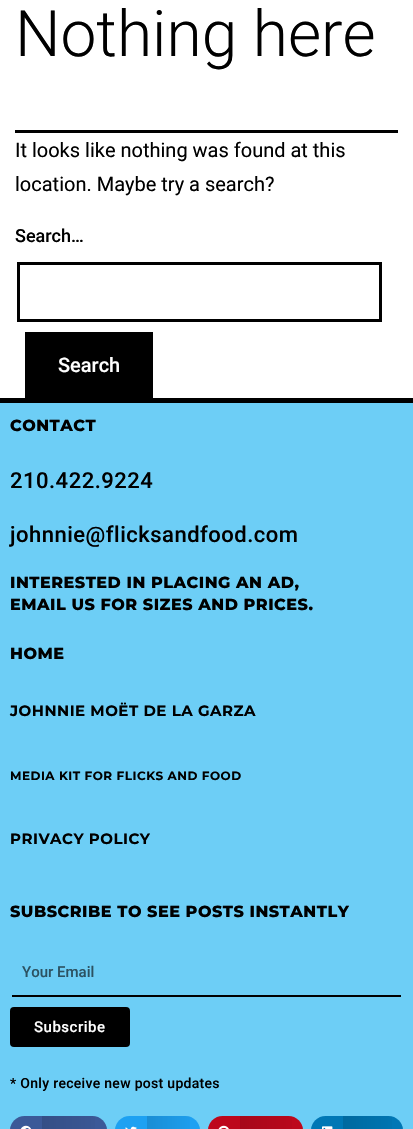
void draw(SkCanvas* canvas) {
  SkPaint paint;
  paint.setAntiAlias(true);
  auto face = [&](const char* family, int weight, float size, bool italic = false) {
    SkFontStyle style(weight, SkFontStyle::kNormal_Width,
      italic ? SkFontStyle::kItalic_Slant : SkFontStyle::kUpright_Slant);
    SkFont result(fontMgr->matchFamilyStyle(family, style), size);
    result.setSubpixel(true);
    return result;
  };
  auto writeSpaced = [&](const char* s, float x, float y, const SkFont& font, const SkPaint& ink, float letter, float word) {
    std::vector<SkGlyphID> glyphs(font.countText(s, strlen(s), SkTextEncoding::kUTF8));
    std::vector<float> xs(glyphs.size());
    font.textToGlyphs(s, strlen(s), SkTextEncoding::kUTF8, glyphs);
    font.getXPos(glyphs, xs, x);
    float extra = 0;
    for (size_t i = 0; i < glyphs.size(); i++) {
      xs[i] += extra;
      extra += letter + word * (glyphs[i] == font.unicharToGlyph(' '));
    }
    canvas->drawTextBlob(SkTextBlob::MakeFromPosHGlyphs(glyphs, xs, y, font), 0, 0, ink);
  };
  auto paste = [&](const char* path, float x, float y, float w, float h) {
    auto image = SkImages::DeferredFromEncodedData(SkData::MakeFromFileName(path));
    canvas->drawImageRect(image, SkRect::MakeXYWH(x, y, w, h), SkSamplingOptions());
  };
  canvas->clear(0xffffffff);
  paint.setColor(0xff000000);
  canvas->drawRect(SkRect::MakeXYWH(15, 130, 383, 3), paint);
  paint.setStroke(true);
  paint.setStrokeWidth(3);
  canvas->drawRect(SkRect::MakeXYWH(18.5f, 263.5f, 362, 57), paint);
  paint.setStroke(false);
  {
    const struct { float x, y, w, h; SkColor color; } items[] = {
      {25, 332, 128, 66, 0xff000000},
      {0, 403, 413, 726, 0xff6dcef6},
      {0, 398, 413, 5, 0xff000000},
      {12, 995, 389, 2, 0xff000000},
    };
    for (auto [x, y, w, h, color] : items) {
      paint.setColor(color);
      canvas->drawRect(SkRect::MakeXYWH(x, y, w, h), paint);
    }
  }
  canvas->drawRoundRect(SkRect::MakeXYWH(10, 1007, 120, 40), 4, 4, paint);
  paint.setColor(0xff3b5998);
  canvas->drawRoundRect(SkRect::MakeXYWH(10, 1116, 97, 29), 16, 16, paint);
  paste("img/1.png", 20, 1125, 11, 4);
  {
    const SkColor colors[] = {0x1f000000, 0x00000000};
    const float stops[] = {0, 1};
    const SkPoint ends[] = {{42, 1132}, {107, 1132}};
    paint.setShader(SkGradientShader::MakeLinear(ends, colors, stops, 2, SkTileMode::kClamp));
    paint.setAlpha(255);
  }
  canvas->drawRect(SkRect::MakeXYWH(42, 1116, 53, 13), paint);
  paint.setShader(nullptr);
  paint.setColor(0xff1da1f2);
  canvas->drawRoundRect(SkRect::MakeXYWH(115, 1116, 85, 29), 16, 16, paint);
  paste("img/2.png", 125, 1126, 12, 3);
  {
    const SkColor colors[] = {0x1f000000, 0x00000000};
    const float stops[] = {0, 1};
    const SkPoint ends[] = {{147, 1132}, {200, 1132}};
    paint.setShader(SkGradientShader::MakeLinear(ends, colors, stops, 2, SkTileMode::kClamp));
    paint.setAlpha(255);
  }
  canvas->drawRect(SkRect::MakeXYWH(147, 1116, 43, 13), paint);
  paint.setShader(nullptr);
  paint.setColor(0xffbd081c);
  canvas->drawRoundRect(SkRect::MakeXYWH(208, 1116, 95, 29), 16, 16, paint);
  paste("img/3.png", 218, 1125, 11, 4);
  {
    const SkColor colors[] = {0x1f000000, 0x00000000};
    const float stops[] = {0, 1};
    const SkPoint ends[] = {{240, 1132}, {303, 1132}};
    paint.setShader(SkGradientShader::MakeLinear(ends, colors, stops, 2, SkTileMode::kClamp));
    paint.setAlpha(255);
  }
  canvas->drawRect(SkRect::MakeXYWH(240, 1116, 52, 13), paint);
  paint.setShader(nullptr);
  paint.setColor(0xff0077b5);
  canvas->drawRoundRect(SkRect::MakeXYWH(311, 1116, 92, 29), 16, 16, paint);
  paste("img/4.png", 322, 1126, 11, 3);
  {
    const SkColor colors[] = {0x1f000000, 0x00000000};
    const float stops[] = {0, 1};
    const SkPoint ends[] = {{343, 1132}, {403, 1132}};
    paint.setShader(SkGradientShader::MakeLinear(ends, colors, stops, 2, SkTileMode::kClamp));
    paint.setAlpha(255);
  }
  canvas->drawRect(SkRect::MakeXYWH(343, 1116, 49, 13), paint);
  auto f0 = face("Roboto", 300, 64);
  paint.setShader(nullptr);
  paint.setColor(0xff000000);
  canvas->drawString("Nothing here", 15, 56, f0, paint);
  auto f1 = face("Roboto", 400, 20);
  canvas->drawString("It looks like nothing was found at this", 15, 157, f1, paint);
  canvas->drawString("location. Maybe try a search?", 15, 191, f1, paint);
  auto f2 = face("Roboto", 500, 18);
  canvas->drawString("Search…", 15, 242, f2, paint);
  auto f3 = face("Roboto", 500, 20);
  paint.setColor(0xffffffff);
  canvas->drawString("Search", 58, 372, f3, paint);
  auto f4 = face("Montserrat", 800, 16);
  paint.setColor(0xff000000);
  writeSpaced("CONTACT", 10, 431, f4, paint, 0.5f, 0);
  auto f5 = face("Roboto", 500, 22);
  writeSpaced("210.422.9224", 10, 488, f5, paint, 0.5f, 0);
  writeSpaced("johnnie@flicksandfood.com", 10, 542, f5, paint, 0.5f, 0);
  {
    const struct { const char* s; float x, y; } items[] = {
      {"INTERESTED IN PLACING AN AD,", 10, 588},
      {"EMAIL US FOR SIZES AND PRICES.", 10, 610},
      {"HOME", 10, 659},
    };
    for (auto [s, x, y] : items) {
      writeSpaced(s, x, y, f4, paint, 0.5f, 0);
    }
  }
  auto f6 = face("Montserrat", 700, 15);
  writeSpaced("JOHNNIE MOËT DE LA GARZA", 10, 716, f6, paint, 0.5f, 0);
  auto f7 = face("Montserrat", 700, 12);
  writeSpaced("MEDIA KIT FOR FLICKS AND FOOD", 10, 780, f7, paint, 0.5f, 0);
  writeSpaced("PRIVACY POLICY", 10, 844, f6, paint, 0.5f, 0);
  writeSpaced("SUBSCRIBE TO SEE POSTS INSTANTLY", 10, 917, f4, paint, 0.5f, 0);
  auto f8 = face("Roboto", 500, 15);
  paint.setColor(0xff2c5262);
  canvas->drawString("Your Email", 22, 977, f8, paint);
  paint.setColor(0xffffffff);
  writeSpaced("Subscribe", 34, 1032, f8, paint, 0.5f, 0);
  auto f9 = face("Roboto", 500, 14);
  paint.setColor(0xff000000);
  writeSpaced("* Only receive new post updates", 10, 1088, f9, paint, 0.3f, 0);
}
